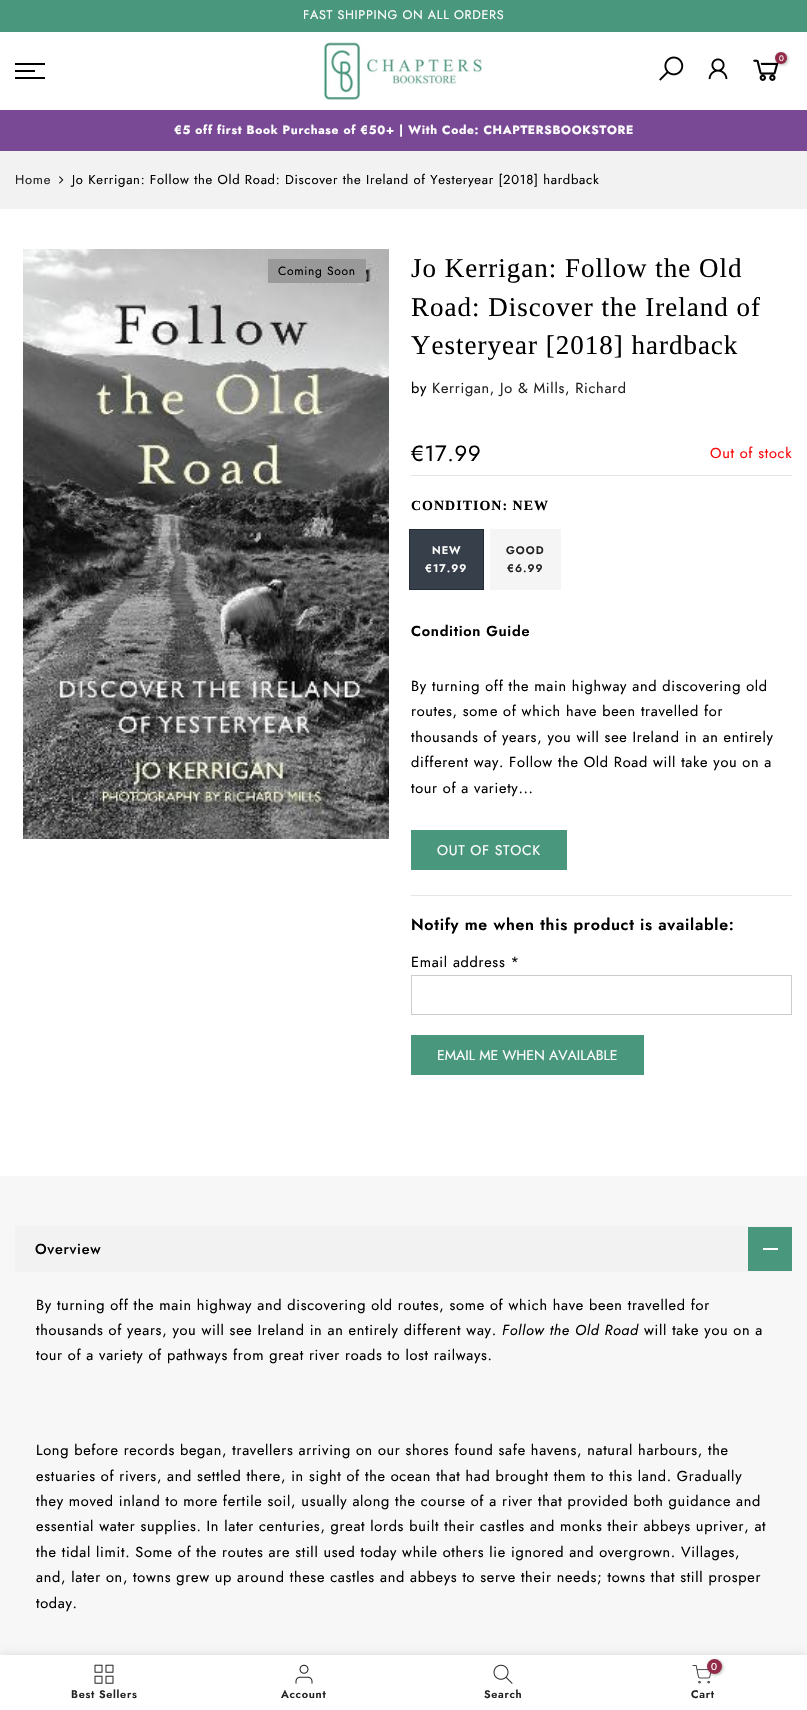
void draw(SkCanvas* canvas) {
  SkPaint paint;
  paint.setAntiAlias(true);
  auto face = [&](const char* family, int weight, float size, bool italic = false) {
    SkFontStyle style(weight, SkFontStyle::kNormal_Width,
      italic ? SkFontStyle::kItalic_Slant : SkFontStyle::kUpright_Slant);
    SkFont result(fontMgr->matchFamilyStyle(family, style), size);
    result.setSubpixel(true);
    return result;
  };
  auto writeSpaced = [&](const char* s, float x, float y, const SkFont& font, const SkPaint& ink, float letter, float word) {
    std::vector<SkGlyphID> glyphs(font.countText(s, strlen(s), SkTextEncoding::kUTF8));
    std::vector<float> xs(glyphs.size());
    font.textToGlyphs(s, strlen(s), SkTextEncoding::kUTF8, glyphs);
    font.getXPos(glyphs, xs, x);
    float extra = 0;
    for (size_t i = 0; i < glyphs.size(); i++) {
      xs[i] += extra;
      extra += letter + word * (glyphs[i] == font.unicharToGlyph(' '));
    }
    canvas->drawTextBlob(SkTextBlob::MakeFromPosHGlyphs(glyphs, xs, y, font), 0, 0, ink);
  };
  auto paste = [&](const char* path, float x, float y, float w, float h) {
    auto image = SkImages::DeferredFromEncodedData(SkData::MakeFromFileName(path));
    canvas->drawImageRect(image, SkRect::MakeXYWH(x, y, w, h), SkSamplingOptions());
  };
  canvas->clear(0xffffffff);
  paint.setColor(0xff49977d);
  canvas->drawRect(SkRect::MakeXYWH(0, 0, 807, 32), paint);
  paste("img/1.png", 323, 42, 159, 59);
  paste("img/2.png", 659, 56, 25, 25);
  paste("img/3.png", 708, 58, 20, 22);
  paste("img/4.png", 753, 59, 26, 22);
  paint.setColor(0x4d000000);
  paint.setMaskFilter(SkMaskFilter::MakeBlur(kNormal_SkBlurStyle, 1.5f));
  canvas->drawRoundRect(SkRect::MakeXYWH(776, 53, 12, 12), 6, 6, paint);
  paint.setMaskFilter(nullptr);
  paint.setColor(0xff932c49);
  canvas->drawCircle(781, 58, 6, paint);
  {
    const struct { float x, y, w, h; SkColor color; } items[] = {
      {15, 63, 30, 2, 0xff000000},
      {15, 70, 20, 2, 0xff000000},
      {15, 77, 30, 2, 0xff000000},
      {0, 110, 807, 41, 0xff7a4996},
      {0, 151, 807, 58, 0xfff2f2f2},
    };
    for (auto [x, y, w, h, color] : items) {
      paint.setColor(color);
      canvas->drawRect(SkRect::MakeXYWH(x, y, w, h), paint);
    }
  }
  paste("img/5.png", 59, 176, 5, 8);
  paste("img/6.png", 23, 249, 366, 590);
  paint.setColor(0xff999999);
  canvas->drawRect(SkRect::MakeXYWH(268, 259, 98, 24), paint);
  paint.setColor(0xffe5e5e5);
  canvas->drawRect(SkRect::MakeXYWH(411, 475, 381, 1), paint);
  paint.setColor(0xff37404a);
  canvas->drawRect(SkRect::MakeXYWH(409.5f, 529.5f, 74, 60), paint);
  paint.setStroke(true);
  paint.setStrokeWidth(1);
  paint.setColor(0xff232d38);
  canvas->drawRect(SkRect::MakeXYWH(409.5f, 529.5f, 74, 60), paint);
  paint.setStroke(false);
  {
    const struct { float x, y, w, h; SkColor color; } items[] = {
      {490, 529, 71, 61, 0xfff5f5f5},
      {411, 830, 156, 40, 0xff49977d},
      {411, 895, 381, 1, 0xffe6e6e6},
    };
    for (auto [x, y, w, h, color] : items) {
      paint.setColor(color);
      canvas->drawRect(SkRect::MakeXYWH(x, y, w, h), paint);
    }
  }
  paint.setStroke(true);
  paint.setColor(0xffcccccc);
  canvas->drawRect(SkRect::MakeXYWH(411.5f, 975.5f, 380, 39), paint);
  paint.setStroke(false);
  {
    const struct { float x, y, w, h; SkColor color; } items[] = {
      {411, 1035, 233, 40, 0xff49977d},
      {0, 1176, 807, 479, 0xfff7f7f7},
      {15, 1226, 777, 46, 0xfff2f2f2},
      {748, 1227, 44, 44, 0xff49977d},
      {763, 1248, 15, 2, 0xffffffff},
    };
    for (auto [x, y, w, h, color] : items) {
      paint.setColor(color);
      canvas->drawRect(SkRect::MakeXYWH(x, y, w, h), paint);
    }
  }
  paint.setColor(0x1f000000);
  paint.setMaskFilter(SkMaskFilter::MakeBlur(kNormal_SkBlurStyle, 4.5f));
  canvas->drawRect(SkRect::MakeXYWH(0, 1655, 807, 55), paint);
  paint.setMaskFilter(nullptr);
  paint.setColor(0xffffffff);
  canvas->drawRect(SkRect::MakeXYWH(0, 1655, 807, 55), paint);
  paste("img/7.png", 94, 1664, 20, 20);
  paste("img/8.png", 295, 1664, 18, 20);
  paste("img/9.png", 493, 1664, 20, 20);
  paste("img/10.png", 692, 1665, 19, 19);
  paint.setColor(0x4d000000);
  paint.setMaskFilter(SkMaskFilter::MakeBlur(kNormal_SkBlurStyle, 1.5f));
  canvas->drawRoundRect(SkRect::MakeXYWH(708, 1660, 15, 15), 7.5f, 7.5f, paint);
  paint.setMaskFilter(nullptr);
  paint.setColor(0xff932c49);
  canvas->drawCircle(714.5f, 1666.5f, 7.5f, paint);
  auto f0 = face("Jost", 400, 12.5f);
  paint.setColor(0xffffffff);
  writeSpaced("FAST SHIPPING ON ALL ORDERS", 303, 19, f0, paint, 0.7f, 0);
  auto f1 = face("Jost", 400, 8);
  canvas->drawString("0", 779, 61, f1, paint);
  auto f2 = face("Jost", 700, 12);
  writeSpaced("€5 off first Book Purchase of €50+ | With Code: CHAPTERSBOOKSTORE", 174, 134, f2, paint, 0.7f, 0);
  auto f3 = face("Jost", 400, 13);
  paint.setColor(0xff222222);
  writeSpaced("Home", 15, 184, f3, paint, 0.7f, 0);
  paint.setColor(0xff000000);
  writeSpaced("Jo Kerrigan: Follow the Old Road: Discover the Ireland of Yesteryear [2018] hardback", 72, 184, f3, paint, 0.7f, 0);
  auto f4 = face("Jost", 400, 12);
  writeSpaced("Coming Soon", 278, 275, f4, paint, 0.7f, 0);
  auto f5 = face("Liberation Serif", 400, 27);
  {
    const struct { const char* s; float x, y; } items[] = {
      {"Jo Kerrigan: Follow the Old", 411, 277},
      {"Road: Discover the Ireland of", 411, 316},
      {"Yesteryear [2018] hardback", 411, 354},
    };
    for (auto [s, x, y] : items) {
      writeSpaced(s, x, y, f5, paint, 1, 0);
    }
  }
  auto f6 = face("Jost", 400, 14.5f);
  writeSpaced("by", 411, 393, f6, paint, 0.7f, 0);
  paint.setColor(0xff222222);
  writeSpaced("Kerrigan, Jo & Mills, Richard", 432, 393, f6, paint, 0.7f, 0);
  auto f7 = face("Jost", 400, 22);
  paint.setColor(0xff000000);
  writeSpaced("€17.99", 411, 461, f7, paint, 0.7f, 0);
  paint.setColor(0xfffa0b0b);
  writeSpaced("Out of stock", 710, 458, f6, paint, 0.7f, 0);
  auto f8 = face("Liberation Serif", 700, 14);
  paint.setColor(0xff000000);
  writeSpaced("CONDITION: NEW", 411, 510, f8, paint, 1, 0);
  auto f9 = face("Jost", 600, 11);
  paint.setColor(0xffffffff);
  writeSpaced("NEW", 432, 554, f9, paint, 1, 0);
  writeSpaced("€17.99", 425, 572, f9, paint, 1, 0);
  paint.setColor(0xff222222);
  writeSpaced("GOOD", 506, 554, f9, paint, 1, 0);
  writeSpaced("€6.99", 507, 572, f9, paint, 1, 0);
  auto f10 = face("Jost", 600, 14.5f);
  paint.setColor(0xff000000);
  writeSpaced("Condition Guide", 411, 636, f10, paint, 0.7f, 0);
  {
    const struct { const char* s; float x, y; } items[] = {
      {"By turning off the main highway and discovering old", 411, 691},
      {"routes, some of which have been travelled for", 411, 716},
      {"thousands of years, you will see Ireland in an entirely", 411, 742},
      {"different way. Follow the Old Road will take you on a", 411, 767},
      {"tour of a variety...", 411, 793},
    };
    for (auto [s, x, y] : items) {
      writeSpaced(s, x, y, f6, paint, 0.7f, 0);
    }
  }
  auto f11 = face("Jost", 400, 14);
  paint.setColor(0xffffffff);
  writeSpaced("OUT OF STOCK", 437, 855, f11, paint, 0.7f, 0);
  auto f12 = face("Jost", 600, 16);
  paint.setColor(0xff000000);
  writeSpaced("Notify me when this product is available:", 411, 930, f12, paint, 0.7f, 0);
  writeSpaced("Email address *", 411, 967, f6, paint, 0.7f, 0);
  paint.setColor(0xffffffff);
  canvas->drawString("EMAIL ME WHEN AVAILABLE", 437, 1060, f11, paint);
  auto f13 = face("Jost", 500, 14.5f);
  paint.setColor(0xff000000);
  writeSpaced("Overview", 35, 1254, f13, paint, 0.7f, 0);
  writeSpaced("By turning off the main highway and discovering old routes, some of which have been travelled for", 36, 1310, f6, paint, 0.7f, 0);
  writeSpaced("thousands of years, you will see Ireland in an entirely different way.", 36, 1335, f6, paint, 0.7f, 0);
  auto f14 = face("Jost", 400, 14.5f, true);
  writeSpaced("Follow the Old Road", 502, 1335, f14, paint, 0.7f, 0);
  {
    const struct { const char* s; float x, y; } items[] = {
      {"will take you on a", 644, 1335},
      {"tour of a variety of pathways from great river roads to lost railways.", 36, 1360},
      {"Long before records began, travellers arriving on our shores found safe havens, natural harbours, the", 36, 1455},
      {"estuaries of rivers, and settled there, in sight of the ocean that had brought them to this land. Gradually", 36, 1481},
      {"they moved inland to more fertile soil, usually along the course of a river that provided both guidance and", 36, 1506},
      {"essential water supplies. In later centuries, great lords built their castles and monks their abbeys upriver, at", 36, 1531},
      {"the tidal limit. Some of the routes are still used today while others lie ignored and overgrown. Villages,", 36, 1557},
      {"and, later on, towns grew up around these castles and abbeys to serve their needs; towns that still prosper", 36, 1582},
      {"today.", 36, 1608},
    };
    for (auto [s, x, y] : items) {
      writeSpaced(s, x, y, f6, paint, 0.7f, 0);
    }
  }
  paint.setColor(0xff222222);
  {
    const struct { const char* s; float x, y; } items[] = {
      {"Best Sellers", 71, 1698},
      {"Account", 281, 1698},
      {"Search", 484, 1698},
    };
    for (auto [s, x, y] : items) {
      writeSpaced(s, x, y, f9, paint, 0.7f, 0);
    }
  }
  auto f15 = face("Jost", 400, 10);
  paint.setColor(0xffffffff);
  canvas->drawString("0", 711, 1670, f15, paint);
  paint.setColor(0xff222222);
  writeSpaced("Cart", 691, 1698, f9, paint, 0.7f, 0);
}
